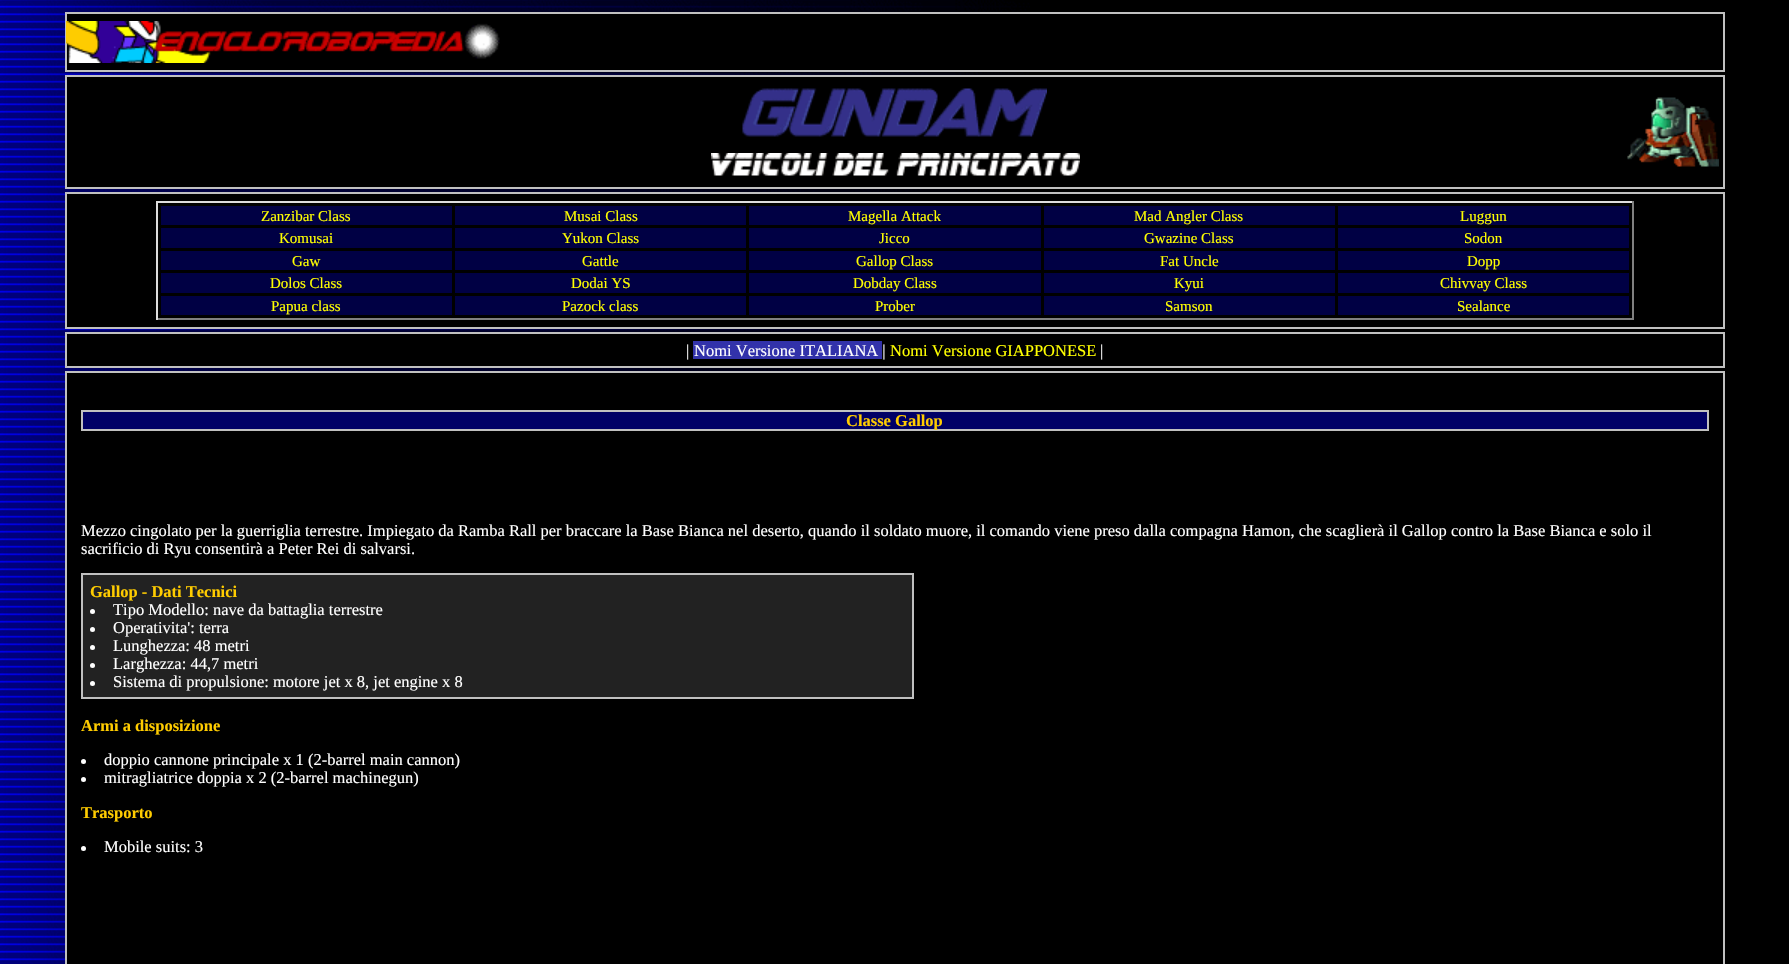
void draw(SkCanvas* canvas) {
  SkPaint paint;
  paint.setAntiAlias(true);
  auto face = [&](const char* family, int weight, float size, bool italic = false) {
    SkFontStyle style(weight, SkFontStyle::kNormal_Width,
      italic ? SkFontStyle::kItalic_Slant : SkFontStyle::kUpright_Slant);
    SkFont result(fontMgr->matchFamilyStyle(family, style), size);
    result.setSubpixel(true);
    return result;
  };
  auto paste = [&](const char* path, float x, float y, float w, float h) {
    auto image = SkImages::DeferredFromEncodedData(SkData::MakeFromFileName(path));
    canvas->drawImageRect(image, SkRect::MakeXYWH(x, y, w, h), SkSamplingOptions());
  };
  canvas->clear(0xff000000);
  paste("img/1.png", 0, 0, 1030, 964);
  paint.setColor(0xff000000);
  canvas->drawRect(SkRect::MakeXYWH(67, 14, 963, 56), paint);
  paint.setStroke(true);
  paint.setStrokeWidth(2);
  paint.setColor(0xffc0c0c0);
  canvas->drawRect(SkRect::MakeXYWH(66, 13, 1658, 58), paint);
  paste("img/2.png", 66, 21, 434, 42);
  paint.setStroke(false);
  paint.setColor(0xff000000);
  canvas->drawRect(SkRect::MakeXYWH(67, 77, 963, 110), paint);
  paint.setStroke(true);
  paint.setColor(0xffc0c0c0);
  canvas->drawRect(SkRect::MakeXYWH(66, 76, 1658, 112), paint);
  paste("img/3.png", 742, 88, 305, 49);
  paste("img/4.png", 711, 153, 369, 23);
  paste("img/5.png", 1627, 97, 92, 70);
  paint.setStroke(false);
  paint.setColor(0xff000000);
  canvas->drawRect(SkRect::MakeXYWH(67, 194, 963, 133), paint);
  paint.setStroke(true);
  paint.setColor(0xffc0c0c0);
  canvas->drawRect(SkRect::MakeXYWH(66, 193, 1658, 135), paint);
  paint.setStroke(false);
  {
    const struct { float x, y, w, h; SkColor color; } items[] = {
      {156, 201, 1478, 2, 0xffdddddd},
      {1632, 201, 2, 119, 0xff808080},
      {156, 318, 1478, 2, 0xff808080},
      {156, 201, 2, 119, 0xffdddddd},
      {161, 206, 291, 19, 0xff000044},
      {455, 206, 291, 19, 0xff000044},
      {749, 206, 292, 19, 0xff000044},
      {1044, 206, 291, 19, 0xff000044},
      {1338, 206, 291, 19, 0xff000044},
      {161, 228, 291, 20, 0xff000044},
      {455, 228, 291, 20, 0xff000044},
      {749, 228, 292, 20, 0xff000044},
      {1044, 228, 291, 20, 0xff000044},
      {1338, 228, 291, 20, 0xff000044},
      {161, 251, 291, 19, 0xff000044},
      {455, 251, 291, 19, 0xff000044},
      {749, 251, 292, 19, 0xff000044},
      {1044, 251, 291, 19, 0xff000044},
      {1338, 251, 291, 19, 0xff000044},
      {161, 273, 291, 20, 0xff000044},
      {455, 273, 291, 20, 0xff000044},
      {749, 273, 292, 20, 0xff000044},
      {1044, 273, 291, 20, 0xff000044},
      {1338, 273, 291, 20, 0xff000044},
      {161, 296, 291, 19, 0xff000044},
      {455, 296, 291, 19, 0xff000044},
      {749, 296, 292, 19, 0xff000044},
      {1044, 296, 291, 19, 0xff000044},
      {1338, 296, 291, 19, 0xff000044},
      {67, 334, 963, 32, 0xff000000},
    };
    for (auto [x, y, w, h, color] : items) {
      paint.setColor(color);
      canvas->drawRect(SkRect::MakeXYWH(x, y, w, h), paint);
    }
  }
  paint.setStroke(true);
  paint.setColor(0xffc0c0c0);
  canvas->drawRect(SkRect::MakeXYWH(66, 333, 1658, 34), paint);
  paint.setStroke(false);
  paint.setColor(0xff3232aa);
  canvas->drawRect(SkRect::MakeXYWH(693, 341, 189, 18), paint);
  paint.setColor(0xff000000);
  canvas->drawRect(SkRect::MakeXYWH(67, 373, 963, 591), paint);
  paint.setStroke(true);
  paint.setColor(0xffc0c0c0);
  canvas->drawRect(SkRect::MakeXYWH(66, 372, 1658, 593), paint);
  paint.setStroke(false);
  paint.setColor(0xff000066);
  canvas->drawRect(SkRect::MakeXYWH(82, 411, 1626, 19), paint);
  paint.setStroke(true);
  paint.setColor(0xffc0c0c0);
  canvas->drawRect(SkRect::MakeXYWH(82, 411, 1626, 19), paint);
  paint.setStroke(false);
  paint.setColor(0xff222222);
  canvas->drawRect(SkRect::MakeXYWH(82, 574, 831, 124), paint);
  paint.setStroke(true);
  paint.setColor(0xffc0c0c0);
  canvas->drawRect(SkRect::MakeXYWH(82, 574, 831, 124), paint);
  paint.setStroke(false);
  paint.setColor(0xffffffff);
  canvas->drawCircle(92.5f, 611.5f, 2.5f, paint);
  canvas->drawCircle(92.5f, 629.5f, 2.5f, paint);
  canvas->drawCircle(92.5f, 647.5f, 2.5f, paint);
  canvas->drawCircle(92.5f, 665.5f, 2.5f, paint);
  canvas->drawCircle(92.5f, 683.5f, 2.5f, paint);
  canvas->drawCircle(83.5f, 761.5f, 2.5f, paint);
  canvas->drawCircle(83.5f, 779.5f, 2.5f, paint);
  canvas->drawCircle(83.5f, 848.5f, 2.5f, paint);
  auto f0 = face("Liberation Serif", 400, 15);
  paint.setColor(0xffffff00);
  {
    const struct { const char* s; float x, y; } items[] = {
      {"Zanzibar Class", 261, 221},
      {"Musai Class", 564, 221},
      {"Magella Attack", 848, 221},
      {"Mad Angler Class", 1134, 221},
      {"Luggun", 1460, 221},
      {"Komusai", 279, 243},
      {"Yukon Class", 562, 243},
      {"Jicco", 879, 243},
      {"Gwazine Class", 1144, 243},
      {"Sodon", 1464, 243},
      {"Gaw", 292, 266},
      {"Gattle", 582, 266},
      {"Gallop Class", 856, 266},
      {"Fat Uncle", 1160, 266},
      {"Dopp", 1467, 266},
      {"Dolos Class", 270, 288},
      {"Dodai YS", 571, 288},
      {"Dobday Class", 853, 288},
      {"Kyui", 1174, 288},
      {"Chivvay Class", 1440, 288},
      {"Papua class", 271, 311},
      {"Pazock class", 562, 311},
      {"Prober", 875, 311},
      {"Samson", 1165, 311},
      {"Sealance", 1457, 311},
    };
    for (auto [s, x, y] : items) {
      canvas->drawString(s, x, y, f0, paint);
    }
  }
  auto f1 = face("Liberation Serif", 400, 16.5f);
  paint.setColor(0xffffffff);
  canvas->drawString("|", 686, 356, f1, paint);
  canvas->drawString("Nomi Versione ITALIANA |", 694, 356, f1, paint);
  paint.setColor(0xffffff00);
  canvas->drawString("Nomi Versione GIAPPONESE", 890, 356, f1, paint);
  paint.setColor(0xffffffff);
  canvas->drawString("|", 1100, 356, f1, paint);
  auto f2 = face("Liberation Serif", 700, 16.5f);
  paint.setColor(0xffffcc00);
  canvas->drawString("Classe Gallop", 846, 426, f2, paint);
  paint.setColor(0xffffffff);
  canvas->drawString("Mezzo cingolato per la guerriglia terrestre. Impiegato da Ramba Rall per braccare la Base Bianca nel deserto, quando il soldato muore, il comando viene preso dalla compagna Hamon, che scaglierà il Gallop contro la Base Bianca e solo il", 81, 536, f1, paint);
  canvas->drawString("sacrificio di Ryu consentirà a Peter Rei di salvarsi.", 81, 554, f1, paint);
  paint.setColor(0xffffcc00);
  canvas->drawString("Gallop - Dati Tecnici", 90, 597, f2, paint);
  paint.setColor(0xffffffff);
  {
    const struct { const char* s; float x, y; } items[] = {
      {"Tipo Modello: nave da battaglia terrestre", 113, 615},
      {"Operativita': terra", 113, 633},
      {"Lunghezza: 48 metri", 113, 651},
      {"Larghezza: 44,7 metri", 113, 669},
      {"Sistema di propulsione: motore jet x 8, jet engine x 8", 113, 687},
    };
    for (auto [s, x, y] : items) {
      canvas->drawString(s, x, y, f1, paint);
    }
  }
  paint.setColor(0xffffcc00);
  canvas->drawString("Armi a disposizione", 81, 731, f2, paint);
  paint.setColor(0xffffffff);
  canvas->drawString("doppio cannone principale x 1 (2-barrel main cannon)", 104, 765, f1, paint);
  canvas->drawString("mitragliatrice doppia x 2 (2-barrel machinegun)", 104, 783, f1, paint);
  paint.setColor(0xffffcc00);
  canvas->drawString("Trasporto", 81, 818, f2, paint);
  paint.setColor(0xffffffff);
  canvas->drawString("Mobile suits: 3", 104, 852, f1, paint);
}
